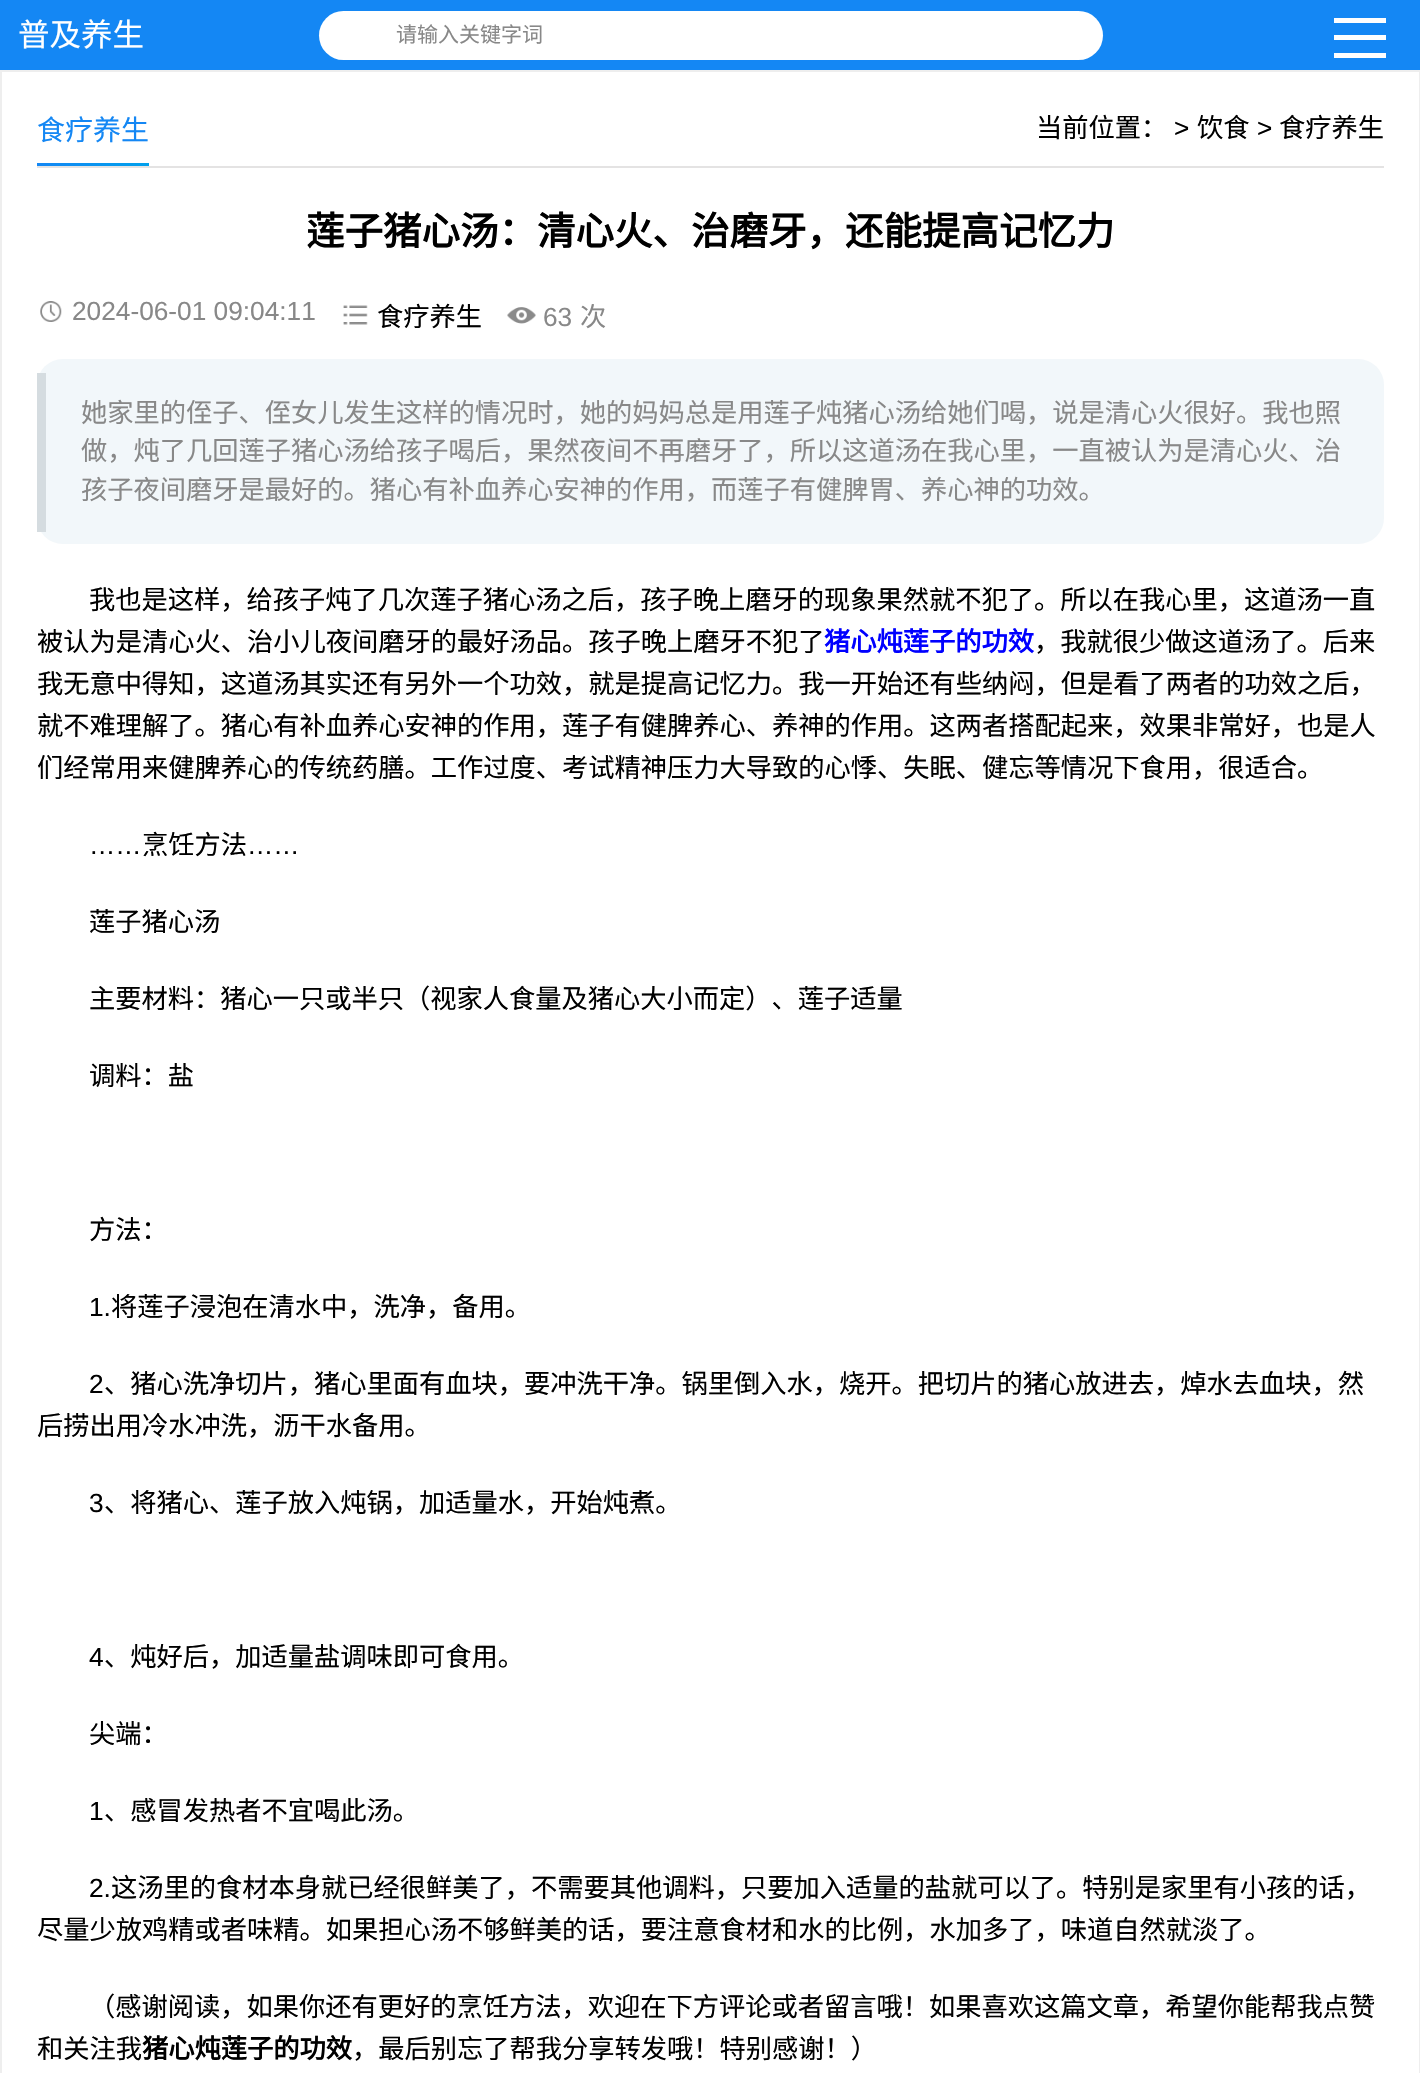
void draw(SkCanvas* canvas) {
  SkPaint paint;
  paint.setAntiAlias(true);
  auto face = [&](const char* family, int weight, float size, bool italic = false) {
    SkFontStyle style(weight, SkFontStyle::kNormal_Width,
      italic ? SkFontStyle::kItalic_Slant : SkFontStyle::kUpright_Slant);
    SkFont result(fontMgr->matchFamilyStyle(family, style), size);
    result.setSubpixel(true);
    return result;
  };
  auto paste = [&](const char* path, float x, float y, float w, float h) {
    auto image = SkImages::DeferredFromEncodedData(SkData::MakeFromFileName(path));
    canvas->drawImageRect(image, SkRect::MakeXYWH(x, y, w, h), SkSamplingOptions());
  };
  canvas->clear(0xffffffff);
  {
    const struct { float x, y, w, h; SkColor color; } items[] = {
      {0, 0, 1420, 70, 0xff1487f4},
      {1334, 35, 52, 5, 0xffffffff},
      {1334, 18, 52, 5, 0xfffffefe},
      {1334, 53, 52, 5, 0xfffffefe},
    };
    for (auto [x, y, w, h, color] : items) {
      paint.setColor(color);
      canvas->drawRect(SkRect::MakeXYWH(x, y, w, h), paint);
    }
  }
  paint.setColor(0xffffffff);
  canvas->drawRoundRect(SkRect::MakeXYWH(319, 11, 784, 49), 24.5f, 24.5f, paint);
  paint.setStroke(true);
  paint.setStrokeWidth(2);
  paint.setColor(0xffeeeeee);
  canvas->drawRect(SkRect::MakeXYWH(1, 71, 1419, 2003), paint);
  paint.setStroke(false);
  paint.setColor(0xffe4e3e3);
  canvas->drawRect(SkRect::MakeXYWH(37, 166, 1347, 2), paint);
  {
    const SkColor colors[] = {0xff1487f4, 0xff00a0ec};
    const float stops[] = {0, 1};
    const SkPoint ends[] = {{37, 165}, {149, 165}};
    paint.setShader(SkGradientShader::MakeLinear(ends, colors, stops, 2, SkTileMode::kClamp));
    paint.setAlpha(255);
  }
  canvas->drawRect(SkRect::MakeXYWH(37, 163, 112, 3), paint);
  paste("img/1.png", 40, 301, 22, 21);
  paste("img/2.png", 343, 305, 25, 20);
  paste("img/3.png", 507, 307, 29, 17);
  paint.setShader(nullptr);
  paint.setColor(0xfff2f7fa);
  canvas->drawRoundRect(SkRect::MakeXYWH(37, 359, 1347, 185), 26, 26, paint);
  paint.setColor(0xffd5dce0);
  canvas->drawRect(SkRect::MakeXYWH(37, 373, 9, 159), paint);
  auto f0 = face("Noto Sans CJK SC", 400, 31.5f);
  paint.setColor(0xffffffff);
  canvas->drawString("普及养生", 18, 46, f0, paint);
  auto f1 = face("Noto Sans CJK SC", 400, 21);
  paint.setColor(0xff888888);
  canvas->drawString("请输入关键字词", 396, 42, f1, paint);
  auto f2 = face("Noto Sans CJK SC", 400, 28);
  paint.setColor(0xff1487f4);
  canvas->drawString("食疗养生", 37, 140, f2, paint);
  auto f3 = face("Noto Sans CJK SC", 400, 26.25f);
  paint.setColor(0xff000000);
  canvas->drawString("当前位置：", 1036, 137, f3, paint);
  auto f4 = face("Liberation Sans", 400, 26.25f);
  canvas->drawString(">", 1174, 137, f4, paint);
  canvas->drawString("饮食", 1197, 137, f3, paint);
  canvas->drawString(">", 1257, 137, f4, paint);
  canvas->drawString("食疗养生", 1279, 137, f3, paint);
  auto f5 = face("Noto Sans CJK SC", 700, 38.5f);
  canvas->drawString("莲子猪心汤：清心火、治磨牙，还能提高记忆力", 306, 245, f5, paint);
  paint.setColor(0xff888888);
  canvas->drawString("2024-06-01 09:04:11", 72, 320, f4, paint);
  paint.setColor(0xff000000);
  canvas->drawString("食疗养生", 377, 326, f3, paint);
  paint.setColor(0xff888888);
  canvas->drawString("63", 543, 326, f4, paint);
  {
    const struct { const char* s; float x, y; } items[] = {
      {"次", 580, 326},
      {"她家里的侄子、侄女儿发生这样的情况时，她的妈妈总是用莲子炖猪心汤给她们喝，说是清心火很好。我也照", 81, 422},
      {"做，炖了几回莲子猪心汤给孩子喝后，果然夜间不再磨牙了，所以这道汤在我心里，一直被认为是清心火、治", 81, 460},
      {"孩子夜间磨牙是最好的。猪心有补血养心安神的作用，而莲子有健脾胃、养心神的功效。", 81, 499},
    };
    for (auto [s, x, y] : items) {
      canvas->drawString(s, x, y, f3, paint);
    }
  }
  paint.setColor(0xff000000);
  canvas->drawString("我也是这样，给孩子炖了几次莲子猪心汤之后，孩子晚上磨牙的现象果然就不犯了。所以在我心里，这道汤一直", 89, 609, f3, paint);
  canvas->drawString("被认为是清心火、治小儿夜间磨牙的最好汤品。孩子晚上磨牙不犯了", 37, 651, f3, paint);
  auto f6 = face("Noto Sans CJK SC", 700, 26.25f);
  paint.setColor(0xff0000ff);
  canvas->drawString("猪心炖莲子的功效", 824, 651, f6, paint);
  paint.setColor(0xff000000);
  {
    const struct { const char* s; float x, y; } items[] = {
      {"，我就很少做这道汤了。后来", 1034, 651},
      {"我无意中得知，这道汤其实还有另外一个功效，就是提高记忆力。我一开始还有些纳闷，但是看了两者的功效之后，", 37, 693},
      {"就不难理解了。猪心有补血养心安神的作用，莲子有健脾养心、养神的作用。这两者搭配起来，效果非常好，也是人", 37, 735},
      {"们经常用来健脾养心的传统药膳。工作过度、考试精神压力大导致的心悸、失眠、健忘等情况下食用，很适合。", 37, 777},
    };
    for (auto [s, x, y] : items) {
      canvas->drawString(s, x, y, f3, paint);
    }
  }
  canvas->drawString("……", 89, 854, f4, paint);
  canvas->drawString("烹饪方法", 142, 854, f3, paint);
  canvas->drawString("……", 247, 854, f4, paint);
  {
    const struct { const char* s; float x, y; } items[] = {
      {"莲子猪心汤", 89, 931},
      {"主要材料：猪心一只或半只（视家人食量及猪心大小而定）、莲子适量", 89, 1008},
      {"调料：盐", 89, 1085},
      {"方法：", 89, 1239},
    };
    for (auto [s, x, y] : items) {
      canvas->drawString(s, x, y, f3, paint);
    }
  }
  canvas->drawString("1.", 89, 1316, f4, paint);
  canvas->drawString("将莲子浸泡在清水中，洗净，备用。", 111, 1316, f3, paint);
  canvas->drawString("2", 89, 1393, f4, paint);
  canvas->drawString("、猪心洗净切片，猪心里面有血块，要冲洗干净。锅里倒入水，烧开。把切片的猪心放进去，焯水去血块，然", 104, 1393, f3, paint);
  canvas->drawString("后捞出用冷水冲洗，沥干水备用。", 37, 1435, f3, paint);
  canvas->drawString("3", 89, 1512, f4, paint);
  canvas->drawString("、将猪心、莲子放入炖锅，加适量水，开始炖煮。", 104, 1512, f3, paint);
  canvas->drawString("4", 89, 1666, f4, paint);
  canvas->drawString("、炖好后，加适量盐调味即可食用。", 104, 1666, f3, paint);
  canvas->drawString("尖端：", 89, 1743, f3, paint);
  canvas->drawString("1", 89, 1820, f4, paint);
  canvas->drawString("、感冒发热者不宜喝此汤。", 104, 1820, f3, paint);
  canvas->drawString("2.", 89, 1897, f4, paint);
  {
    const struct { const char* s; float x, y; } items[] = {
      {"这汤里的食材本身就已经很鲜美了，不需要其他调料，只要加入适量的盐就可以了。特别是家里有小孩的话，", 111, 1897},
      {"尽量少放鸡精或者味精。如果担心汤不够鲜美的话，要注意食材和水的比例，水加多了，味道自然就淡了。", 37, 1939},
      {"（感谢阅读，如果你还有更好的烹饪方法，欢迎在下方评论或者留言哦！如果喜欢这篇文章，希望你能帮我点赞", 89, 2016},
      {"和关注我", 37, 2058},
    };
    for (auto [s, x, y] : items) {
      canvas->drawString(s, x, y, f3, paint);
    }
  }
  canvas->drawString("猪心炖莲子的功效", 142, 2058, f6, paint);
  canvas->drawString("，最后别忘了帮我分享转发哦！特别感谢！）", 352, 2058, f3, paint);
}
